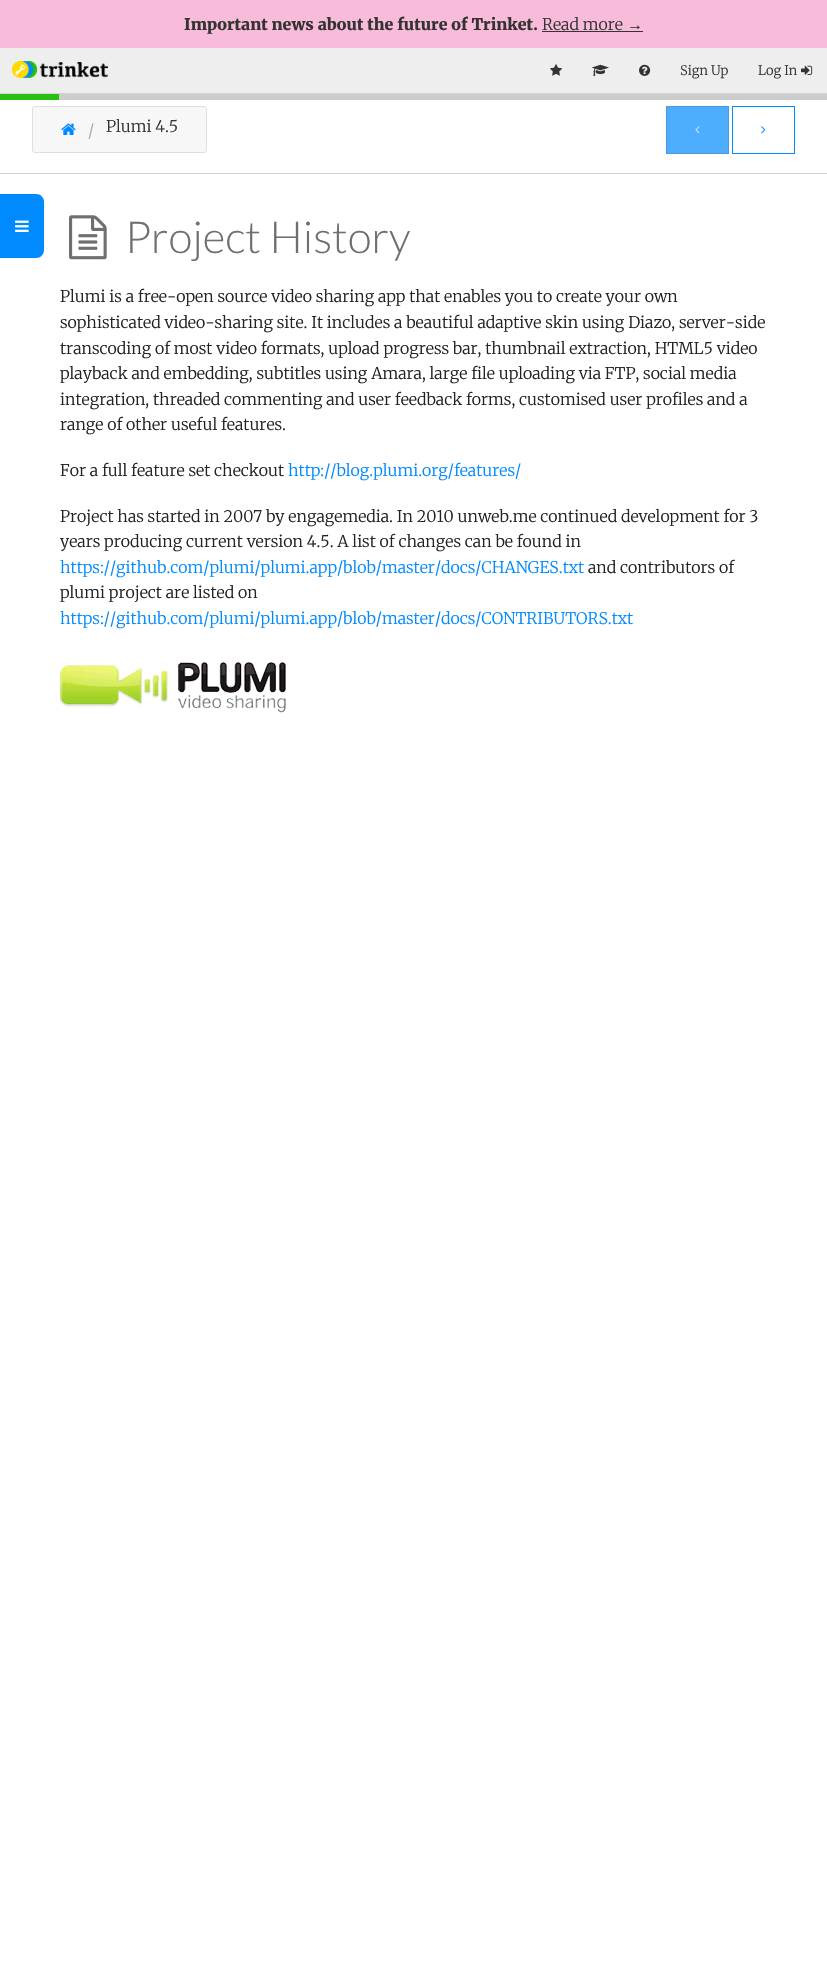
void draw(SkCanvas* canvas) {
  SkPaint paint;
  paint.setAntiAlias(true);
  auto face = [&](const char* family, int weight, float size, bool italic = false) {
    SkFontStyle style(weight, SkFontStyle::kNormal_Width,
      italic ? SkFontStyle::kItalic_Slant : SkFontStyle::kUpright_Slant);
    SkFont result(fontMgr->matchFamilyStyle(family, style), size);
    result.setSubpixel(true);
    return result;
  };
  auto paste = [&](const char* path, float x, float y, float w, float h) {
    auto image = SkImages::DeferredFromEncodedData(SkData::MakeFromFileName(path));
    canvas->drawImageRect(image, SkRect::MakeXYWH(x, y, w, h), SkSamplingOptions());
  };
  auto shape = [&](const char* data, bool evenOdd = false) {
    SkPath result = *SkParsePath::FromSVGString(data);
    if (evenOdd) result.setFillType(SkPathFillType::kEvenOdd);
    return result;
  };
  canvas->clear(0xffffffff);
  {
    const struct { float x, y, w, h; SkColor color; } items[] = {
      {0, 0, 827, 48, 0xfff8bbd9},
      {542, 31, 101, 1, 0xff333333},
      {0, 93, 827, 1, 0xffd4d4d4},
      {0, 48, 827, 45, 0xffeeeeee},
    };
    for (auto [x, y, w, h, color] : items) {
      paint.setColor(color);
      canvas->drawRect(SkRect::MakeXYWH(x, y, w, h), paint);
    }
  }
  paste("img/1.png", 12, 61, 96, 17);
  paste("img/2.png", 550, 64, 12, 12);
  paste("img/3.png", 592, 64, 17, 12);
  paste("img/4.png", 639, 64, 12, 12);
  paste("img/5.png", 801, 65, 12, 10);
  {
    const struct { float x, y, w, h; SkColor color; } items[] = {
      {0, 173, 827, 1, 0xffd4d4d4},
      {59, 94, 768, 6, 0xffcccccc},
      {0, 94, 59, 6, 0xff26bf12},
    };
    for (auto [x, y, w, h, color] : items) {
      paint.setColor(color);
      canvas->drawRect(SkRect::MakeXYWH(x, y, w, h), paint);
    }
  }
  paint.setColor(0xfff7f7f7);
  canvas->drawRoundRect(SkRect::MakeXYWH(32.5f, 106.5f, 174, 46), 2.5f, 2.5f, paint);
  paint.setStroke(true);
  paint.setStrokeWidth(1);
  paint.setColor(0xffdfdfdf);
  canvas->drawRoundRect(SkRect::MakeXYWH(32.5f, 106.5f, 174, 46), 2.5f, 2.5f, paint);
  paste("img/6.png", 61, 123, 15, 12);
  paint.setStroke(false);
  paint.setColor(0xff4dadff);
  canvas->drawRect(SkRect::MakeXYWH(666.5f, 106.5f, 62, 47), paint);
  paint.setStroke(true);
  paint.setColor(0xff4d9adb);
  canvas->drawRect(SkRect::MakeXYWH(666.5f, 106.5f, 62, 47), paint);
  paste("img/7.png", 695, 126, 5, 8);
  paint.setColor(0xff008aff);
  canvas->drawRect(SkRect::MakeXYWH(732.5f, 106.5f, 62, 47), paint);
  paste("img/8.png", 761, 126, 5, 8);
  paint.setStroke(false);
  canvas->drawPath(shape("M0 194H36C40.5 194 44 197.5 44 202V250C44 254.5 40.5 258 36 258H0Z"), paint);
  paste("img/9.png", 15, 220, 14, 12);
  paste("img/10.png", 69, 215, 38, 45);
  paste("img/11.png", 60, 662, 226, 51);
  auto f0 = face("Merriweather", 900, 16);
  paint.setColor(0xff333333);
  canvas->drawString("Important news about the future of Trinket.", 184, 30, f0, paint);
  auto f1 = face("Merriweather", 300, 16);
  canvas->drawString("Read more", 542, 30, f1, paint);
  auto f2 = face("Liberation Serif", 400, 16);
  canvas->drawString("→", 627, 30, f2, paint);
  auto f3 = face("Merriweather", 300, 13);
  canvas->drawString("Sign Up", 680, 75, f3, paint);
  canvas->drawString("Log In", 758, 75, f3, paint);
  paint.setColor(0xffaaaaaa);
  canvas->drawString("/", 88, 136, f1, paint);
  paint.setColor(0xff333333);
  canvas->drawString("Plumi 4.5", 106, 132, f1, paint);
  auto f4 = face("Lato", 300, 44);
  paint.setColor(0xff6f6f6f);
  canvas->drawString("Project History", 125, 253, f4, paint);
  paint.setColor(0xff222222);
  {
    const struct { const char* s; float x, y; } items[] = {
      {"Plumi is a free-open source video sharing app that enables you to create your own", 60, 302},
      {"sophisticated video-sharing site. It includes a beautiful adaptive skin using Diazo, server-side", 60, 328},
      {"transcoding of most video formats, upload progress bar, thumbnail extraction, HTML5 video", 60, 354},
      {"playback and embedding, subtitles using Amara, large file uploading via FTP, social media", 60, 379},
      {"integration, threaded commenting and user feedback forms, customised user profiles and a", 60, 405},
      {"range of other useful features.", 60, 430},
      {"For a full feature set checkout", 60, 476},
    };
    for (auto [s, x, y] : items) {
      canvas->drawString(s, x, y, f1, paint);
    }
  }
  paint.setColor(0xff008aff);
  canvas->drawString("http://blog.plumi.org/features/", 288, 476, f1, paint);
  paint.setColor(0xff222222);
  canvas->drawString("Project has started in 2007 by engagemedia. In 2010 unweb.me continued development for 3", 60, 522, f1, paint);
  canvas->drawString("years producing current version 4.5. A list of changes can be found in", 60, 547, f1, paint);
  paint.setColor(0xff008aff);
  canvas->drawString("https://github.com/plumi/plumi.app/blob/master/docs/CHANGES.txt", 60, 573, f1, paint);
  paint.setColor(0xff222222);
  canvas->drawString("and contributors of", 588, 573, f1, paint);
  canvas->drawString("plumi project are listed on", 60, 598, f1, paint);
  paint.setColor(0xff008aff);
  canvas->drawString("https://github.com/plumi/plumi.app/blob/master/docs/CONTRIBUTORS.txt", 60, 624, f1, paint);
}
